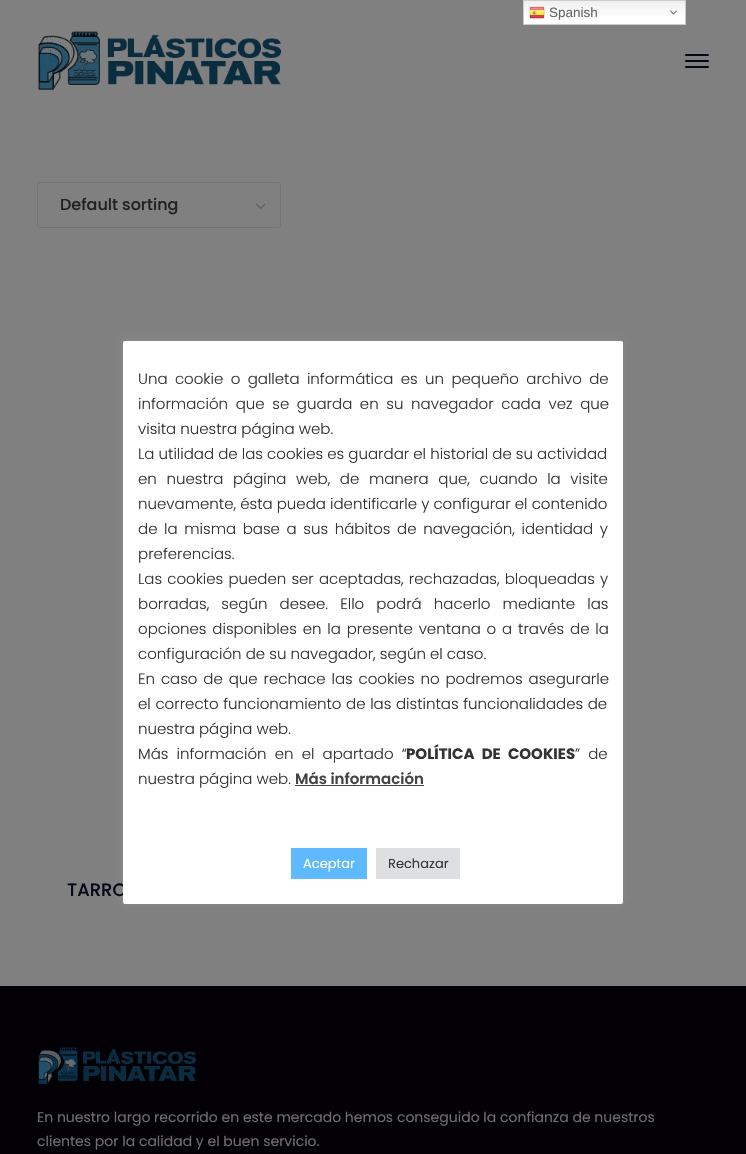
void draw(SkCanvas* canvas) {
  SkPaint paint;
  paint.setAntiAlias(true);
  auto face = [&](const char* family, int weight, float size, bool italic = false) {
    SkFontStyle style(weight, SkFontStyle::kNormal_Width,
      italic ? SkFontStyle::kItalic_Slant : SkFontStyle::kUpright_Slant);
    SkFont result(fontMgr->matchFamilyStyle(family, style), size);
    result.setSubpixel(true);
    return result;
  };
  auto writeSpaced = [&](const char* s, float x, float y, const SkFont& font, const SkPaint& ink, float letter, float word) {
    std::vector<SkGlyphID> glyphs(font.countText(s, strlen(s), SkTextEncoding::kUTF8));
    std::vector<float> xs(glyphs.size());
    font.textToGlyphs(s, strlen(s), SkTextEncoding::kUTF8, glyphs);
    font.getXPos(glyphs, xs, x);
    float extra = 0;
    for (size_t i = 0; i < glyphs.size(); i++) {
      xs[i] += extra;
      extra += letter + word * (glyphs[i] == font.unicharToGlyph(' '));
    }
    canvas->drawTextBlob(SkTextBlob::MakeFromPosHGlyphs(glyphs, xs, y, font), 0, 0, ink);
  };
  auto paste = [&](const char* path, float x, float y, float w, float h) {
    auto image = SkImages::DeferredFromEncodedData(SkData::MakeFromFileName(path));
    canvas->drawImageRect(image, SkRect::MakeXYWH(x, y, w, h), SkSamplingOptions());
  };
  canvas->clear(0xff808080);
  {
    const SkColor colors[] = {0xffefefef, 0xffffffff};
    const float stops[] = {0, 0.7f};
    const SkPoint ends[] = {{605, 0}, {605, 25}};
    paint.setShader(SkGradientShader::MakeLinear(ends, colors, stops, 2, SkTileMode::kClamp));
    paint.setAlpha(255);
  }
  canvas->drawRect(SkRect::MakeXYWH(524, 1, 161, 23), paint);
  paint.setStroke(true);
  paint.setStrokeWidth(1);
  paint.setShader(nullptr);
  paint.setColor(0xffcccccc);
  canvas->drawRect(SkRect::MakeXYWH(523.5f, 0.5f, 162, 24), paint);
  paste("img/1.png", 529, 6, 16, 14);
  paste("img/2.png", 670, 10, 7, 5);
  paste("img/3.png", 38, 31, 243, 60);
  paint.setStroke(false);
  paint.setColor(0xff020814);
  canvas->drawRoundRect(SkRect::MakeXYWH(685, 54, 24, 2), 1, 1, paint);
  canvas->drawRoundRect(SkRect::MakeXYWH(685, 60, 24, 2), 1, 1, paint);
  canvas->drawRoundRect(SkRect::MakeXYWH(685, 66, 24, 2), 1, 1, paint);
  paint.setStroke(true);
  paint.setColor(0xff747474);
  canvas->drawRoundRect(SkRect::MakeXYWH(37.5f, 182.5f, 243, 45), 2.5f, 2.5f, paint);
  paste("img/4.png", 256, 203, 10, 6);
  paint.setStroke(false);
  paint.setColor(0xff020005);
  canvas->drawRect(SkRect::MakeXYWH(0, 986, 746, 168), paint);
  paste("img/5.png", 38, 1047, 158, 37);
  paint.setColor(0x4dacabab);
  paint.setMaskFilter(SkMaskFilter::MakeBlur(kNormal_SkBlurStyle, 5));
  canvas->drawRoundRect(SkRect::MakeXYWH(123, 340, 500, 563), 2, 2, paint);
  paint.setMaskFilter(nullptr);
  auto f0 = face("Liberation Sans", 400, 13.5f);
  paint.setColor(0xff666666);
  canvas->drawString("Spanish", 549, 17, f0, paint);
  auto f1 = face("Poppins", 500, 16);
  paint.setColor(0xff212021);
  canvas->drawString("Default sorting", 60, 210, f1, paint);
  auto f2 = face("Poppins", 500, 18);
  paint.setColor(0xff020814);
  canvas->drawString("TARRO", 67, 896, f2, paint);
  auto f3 = face("Poppins", 400, 14);
  paint.setColor(0xff6f6f6f);
  canvas->drawString("En nuestro largo recorrido en este mercado hemos conseguido la confianza de nuestros", 37, 1122, f3, paint);
  canvas->drawString("clientes por la calidad y el buen servicio.", 37, 1146, f3, paint);
  paint.setColor(0xffffffff);
  canvas->drawRoundRect(SkRect::MakeXYWH(123, 341, 500, 563), 2, 2, paint);
  auto f4 = face("Poppins", 300, 15);
  paint.setColor(0xff333333);
  writeSpaced("Una cookie o galleta informática es un pequeño archivo de", 138, 384, f4, paint, 0, 3.25f);
  writeSpaced("información que se guarda en su navegador cada vez que", 138, 409, f4, paint, 0, 3.5f);
  canvas->drawString("visita nuestra página web.", 138, 434, f4, paint);
  canvas->drawString("La utilidad de las cookies es guardar el historial de su actividad", 138, 459, f4, paint);
  writeSpaced("en nuestra página web, de manera que, cuando la visite", 138, 484, f4, paint, 0, 5.5f);
  canvas->drawString("nuevamente, ésta pueda identificarle y configurar el contenido", 138, 509, f4, paint);
  writeSpaced("de la misma base a sus hábitos de navegación, identidad y", 138, 534, f4, paint, 0, 2.5f);
  canvas->drawString("preferencias.", 138, 559, f4, paint);
  writeSpaced("Las cookies pueden ser aceptadas, rechazadas, bloqueadas y", 138, 584, f4, paint, 0, 1);
  writeSpaced("borradas, según desee. Ello podrá hacerlo mediante las", 138, 609, f4, paint, 0, 8);
  writeSpaced("opciones disponibles en la presente ventana o a través de la", 138, 634, f4, paint, 0, 1.75f);
  canvas->drawString("configuración de su navegador, según el caso.", 138, 659, f4, paint);
  writeSpaced("En caso de que rechace las cookies no podremos asegurarle", 138, 684, f4, paint, 0, 1.75f);
  writeSpaced("el correcto funcionamiento de las distintas funcionalidades de", 138, 709, f4, paint, 0, 0.5f);
  canvas->drawString("nuestra página web.", 138, 734, f4, paint);
  writeSpaced("Más información en el apartado “", 138, 759, f4, paint, 0, 4);
  auto f5 = face("Poppins", 700, 15);
  writeSpaced("POLÍTICA DE COOKIES", 406, 759, f5, paint, 0, 4);
  writeSpaced("” de", 575, 759, f4, paint, 0, 4);
  canvas->drawString("nuestra página web.", 138, 784, f4, paint);
  auto f6 = face("Poppins", 600, 15);
  paint.setColor(0xff444444);
  canvas->drawString("Más información", 295, 784, f6, paint);
  canvas->drawRect(SkRect::MakeXYWH(295, 785, 129, 1), paint);
  paint.setColor(0xff5eb9ff);
  canvas->drawRect(SkRect::MakeXYWH(291, 848, 76, 31), paint);
  auto f7 = face("Poppins", 400, 13);
  paint.setColor(0xffffffff);
  canvas->drawString("Aceptar", 303, 868, f7, paint);
  paint.setColor(0xffdedfe0);
  canvas->drawRect(SkRect::MakeXYWH(376, 848, 84, 31), paint);
  paint.setColor(0xff333333);
  canvas->drawString("Rechazar", 388, 868, f7, paint);
}
